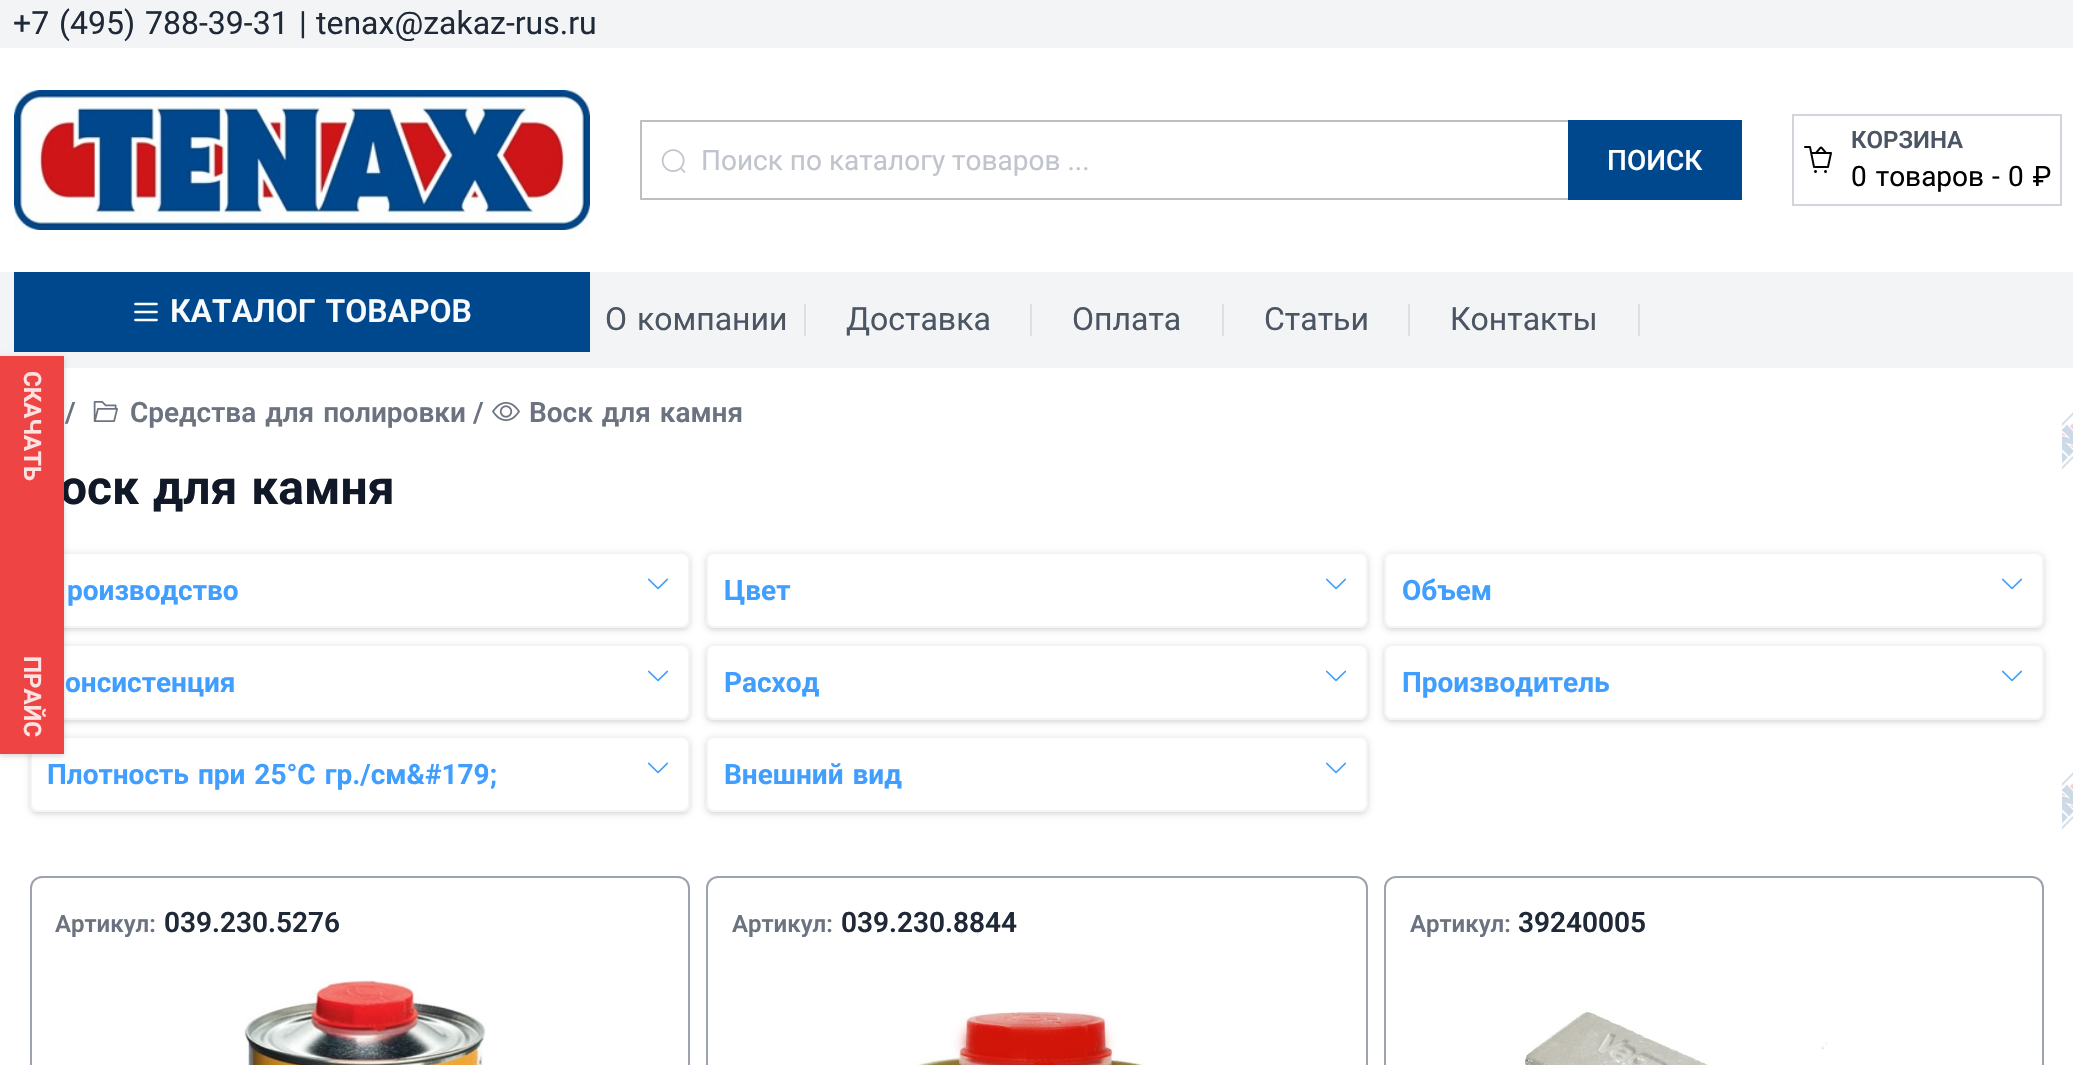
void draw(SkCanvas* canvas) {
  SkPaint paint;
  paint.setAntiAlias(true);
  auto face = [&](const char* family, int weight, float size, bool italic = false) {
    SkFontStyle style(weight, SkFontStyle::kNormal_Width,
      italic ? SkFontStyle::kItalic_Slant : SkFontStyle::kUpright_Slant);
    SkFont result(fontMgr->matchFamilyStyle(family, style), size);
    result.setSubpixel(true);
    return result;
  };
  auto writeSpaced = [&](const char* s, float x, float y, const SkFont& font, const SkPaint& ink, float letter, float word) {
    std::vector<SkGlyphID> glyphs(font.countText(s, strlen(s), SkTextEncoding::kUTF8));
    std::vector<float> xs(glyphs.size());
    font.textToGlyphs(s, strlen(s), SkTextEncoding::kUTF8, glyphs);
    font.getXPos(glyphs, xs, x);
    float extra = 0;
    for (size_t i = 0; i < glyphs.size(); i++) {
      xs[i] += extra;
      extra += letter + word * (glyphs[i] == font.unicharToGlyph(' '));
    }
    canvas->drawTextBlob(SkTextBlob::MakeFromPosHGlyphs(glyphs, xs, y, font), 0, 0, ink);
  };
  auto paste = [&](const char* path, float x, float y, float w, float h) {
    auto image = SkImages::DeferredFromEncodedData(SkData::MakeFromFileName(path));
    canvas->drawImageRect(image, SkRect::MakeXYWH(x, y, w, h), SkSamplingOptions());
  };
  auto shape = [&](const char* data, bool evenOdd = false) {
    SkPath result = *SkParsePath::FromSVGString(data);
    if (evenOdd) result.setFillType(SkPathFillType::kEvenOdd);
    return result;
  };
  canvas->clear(0xffffffff);
  paste("img/1.png", 2062, 412, 11, 418);
  paint.setColor(0xfff3f4f6);
  canvas->drawRect(SkRect::MakeXYWH(0, 0, 2073, 48), paint);
  paste("img/2.png", 14, 90, 576, 140);
  paste("img/3.png", 661, 149, 25, 24);
  paint.setColor(0xffbebebe);
  canvas->drawPath(shape("M640 120H1568V122H642Z"), paint);
  canvas->drawPath(shape("M1568 200H640L642 198H1568Z"), paint);
  paint.setColor(0x7a777777);
  canvas->drawPath(shape("M640 200V120L642 122V198Z"), paint);
  paint.setColor(0xff00488d);
  canvas->drawRect(SkRect::MakeXYWH(1568, 120, 174, 80), paint);
  paint.setStroke(true);
  paint.setStrokeWidth(2);
  paint.setColor(0xffd1d5db);
  canvas->drawRect(SkRect::MakeXYWH(1793, 115, 268, 90), paint);
  paste("img/4.png", 1804, 146, 28, 27);
  paint.setStroke(false);
  paint.setColor(0xfff3f4f6);
  canvas->drawRect(SkRect::MakeXYWH(0, 272, 2073, 96), paint);
  paint.setColor(0xff00488d);
  canvas->drawRect(SkRect::MakeXYWH(14, 272, 576, 80), paint);
  paint.setStroke(true);
  paint.setStrokeWidth(2.7f);
  paint.setStrokeCap(SkPaint::kRound_Cap);
  paint.setStrokeJoin(SkPaint::kRound_Join);
  paint.setColor(0xfff9fafb);
  canvas->drawPath(shape("M135.5 304H156.5M135.5 312H156.5M135.5 320H156.5"), paint);
  paint.setStroke(false);
  {
    const struct { float x, y, w, h; SkColor color; } items[] = {
      {804, 304, 2, 32, 0xffdcdfe6},
      {1030, 304, 2, 32, 0xffdcdfe6},
      {1222, 304, 2, 32, 0xffdcdfe6},
      {1408, 304, 2, 32, 0xffdcdfe6},
      {1638, 304, 2, 32, 0xffdcdfe6},
    };
    for (auto [x, y, w, h, color] : items) {
      paint.setColor(color);
      canvas->drawRect(SkRect::MakeXYWH(x, y, w, h), paint);
    }
  }
  canvas->save();
  canvas->clipPath(shape("M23 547H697V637H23ZM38 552H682C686.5 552 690 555.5 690 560V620C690 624.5 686.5 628 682 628H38C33.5 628 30 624.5 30 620V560C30 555.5 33.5 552 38 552Z", true), true);
  paint.setColor(0x0f000000);
  paint.setMaskFilter(SkMaskFilter::MakeBlur(kNormal_SkBlurStyle, 2));
  canvas->drawRoundRect(SkRect::MakeXYWH(30, 554, 660, 76), 8, 8, paint);
  paint.setMaskFilter(nullptr);
  canvas->restore();
  canvas->save();
  canvas->clipPath(shape("M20 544H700V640H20ZM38 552H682C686.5 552 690 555.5 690 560V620C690 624.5 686.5 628 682 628H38C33.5 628 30 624.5 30 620V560C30 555.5 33.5 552 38 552Z", true), true);
  paint.setColor(0x1a000000);
  paint.setMaskFilter(SkMaskFilter::MakeBlur(kNormal_SkBlurStyle, 3));
  canvas->drawRoundRect(SkRect::MakeXYWH(30, 554, 660, 76), 8, 8, paint);
  paint.setMaskFilter(nullptr);
  canvas->restore();
  paint.setStroke(true);
  paint.setStrokeWidth(2);
  paint.setStrokeCap(SkPaint::kButt_Cap);
  paint.setStrokeJoin(SkPaint::kMiter_Join);
  paint.setColor(0xfff3f4f6);
  canvas->drawRoundRect(SkRect::MakeXYWH(31, 553, 658, 74), 7, 7, paint);
  canvas->save();
  canvas->clipPath(shape("M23 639H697V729H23ZM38 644H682C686.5 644 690 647.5 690 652V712C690 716.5 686.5 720 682 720H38C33.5 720 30 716.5 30 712V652C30 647.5 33.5 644 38 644Z", true), true);
  paint.setStroke(false);
  paint.setColor(0x0f000000);
  paint.setMaskFilter(SkMaskFilter::MakeBlur(kNormal_SkBlurStyle, 2));
  canvas->drawRoundRect(SkRect::MakeXYWH(30, 646, 660, 76), 8, 8, paint);
  paint.setMaskFilter(nullptr);
  canvas->restore();
  canvas->save();
  canvas->clipPath(shape("M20 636H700V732H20ZM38 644H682C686.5 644 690 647.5 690 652V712C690 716.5 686.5 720 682 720H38C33.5 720 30 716.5 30 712V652C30 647.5 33.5 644 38 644Z", true), true);
  paint.setColor(0x1a000000);
  paint.setMaskFilter(SkMaskFilter::MakeBlur(kNormal_SkBlurStyle, 3));
  canvas->drawRoundRect(SkRect::MakeXYWH(30, 646, 660, 76), 8, 8, paint);
  paint.setMaskFilter(nullptr);
  canvas->restore();
  paint.setStroke(true);
  paint.setColor(0xfff3f4f6);
  canvas->drawRoundRect(SkRect::MakeXYWH(31, 645, 658, 74), 7, 7, paint);
  canvas->save();
  canvas->clipPath(shape("M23 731H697V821H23ZM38 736H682C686.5 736 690 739.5 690 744V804C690 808.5 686.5 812 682 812H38C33.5 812 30 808.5 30 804V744C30 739.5 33.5 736 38 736Z", true), true);
  paint.setStroke(false);
  paint.setColor(0x0f000000);
  paint.setMaskFilter(SkMaskFilter::MakeBlur(kNormal_SkBlurStyle, 2));
  canvas->drawRoundRect(SkRect::MakeXYWH(30, 738, 660, 76), 8, 8, paint);
  paint.setMaskFilter(nullptr);
  canvas->restore();
  canvas->save();
  canvas->clipPath(shape("M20 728H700V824H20ZM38 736H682C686.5 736 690 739.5 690 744V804C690 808.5 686.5 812 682 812H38C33.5 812 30 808.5 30 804V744C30 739.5 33.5 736 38 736Z", true), true);
  paint.setColor(0x1a000000);
  paint.setMaskFilter(SkMaskFilter::MakeBlur(kNormal_SkBlurStyle, 3));
  canvas->drawRoundRect(SkRect::MakeXYWH(30, 738, 660, 76), 8, 8, paint);
  paint.setMaskFilter(nullptr);
  canvas->restore();
  paint.setStroke(true);
  paint.setColor(0xfff3f4f6);
  canvas->drawRoundRect(SkRect::MakeXYWH(31, 737, 658, 74), 7, 7, paint);
  paint.setStroke(false);
  paint.setColor(0x0f000000);
  paint.setMaskFilter(SkMaskFilter::MakeBlur(kNormal_SkBlurStyle, 2));
  canvas->drawRect(SkRect::MakeXYWH(0, 358, 64, 398), paint);
  paint.setMaskFilter(nullptr);
  paint.setColor(0x1a000000);
  paint.setMaskFilter(SkMaskFilter::MakeBlur(kNormal_SkBlurStyle, 3));
  canvas->drawRect(SkRect::MakeXYWH(0, 358, 64, 398), paint);
  paint.setMaskFilter(nullptr);
  paste("img/5.png", 93, 401, 25, 21);
  paste("img/6.png", 492, 401, 28, 21);
  paste("img/7.png", 647, 578, 22, 12);
  canvas->save();
  canvas->clipPath(shape("M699 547H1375V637H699ZM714 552H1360C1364.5 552 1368 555.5 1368 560V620C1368 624.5 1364.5 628 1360 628H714C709.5 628 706 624.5 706 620V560C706 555.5 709.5 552 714 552Z", true), true);
  paint.setColor(0x0f000000);
  paint.setMaskFilter(SkMaskFilter::MakeBlur(kNormal_SkBlurStyle, 2));
  canvas->drawRoundRect(SkRect::MakeXYWH(706, 554, 662, 76), 8, 8, paint);
  paint.setMaskFilter(nullptr);
  canvas->restore();
  canvas->save();
  canvas->clipPath(shape("M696 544H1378V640H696ZM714 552H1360C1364.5 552 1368 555.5 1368 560V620C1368 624.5 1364.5 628 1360 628H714C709.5 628 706 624.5 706 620V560C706 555.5 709.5 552 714 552Z", true), true);
  paint.setColor(0x1a000000);
  paint.setMaskFilter(SkMaskFilter::MakeBlur(kNormal_SkBlurStyle, 3));
  canvas->drawRoundRect(SkRect::MakeXYWH(706, 554, 662, 76), 8, 8, paint);
  paint.setMaskFilter(nullptr);
  canvas->restore();
  paint.setStroke(true);
  paint.setColor(0xfff3f4f6);
  canvas->drawRoundRect(SkRect::MakeXYWH(707, 553, 660, 74), 7, 7, paint);
  paste("img/7.png", 1325, 578, 22, 12);
  canvas->save();
  canvas->clipPath(shape("M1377 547H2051V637H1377ZM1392 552H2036C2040.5 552 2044 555.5 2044 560V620C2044 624.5 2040.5 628 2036 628H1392C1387.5 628 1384 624.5 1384 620V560C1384 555.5 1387.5 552 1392 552Z", true), true);
  paint.setStroke(false);
  paint.setColor(0x0f000000);
  paint.setMaskFilter(SkMaskFilter::MakeBlur(kNormal_SkBlurStyle, 2));
  canvas->drawRoundRect(SkRect::MakeXYWH(1384, 554, 660, 76), 8, 8, paint);
  paint.setMaskFilter(nullptr);
  canvas->restore();
  canvas->save();
  canvas->clipPath(shape("M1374 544H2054V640H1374ZM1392 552H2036C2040.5 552 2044 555.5 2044 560V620C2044 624.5 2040.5 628 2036 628H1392C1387.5 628 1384 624.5 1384 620V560C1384 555.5 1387.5 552 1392 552Z", true), true);
  paint.setColor(0x1a000000);
  paint.setMaskFilter(SkMaskFilter::MakeBlur(kNormal_SkBlurStyle, 3));
  canvas->drawRoundRect(SkRect::MakeXYWH(1384, 554, 660, 76), 8, 8, paint);
  paint.setMaskFilter(nullptr);
  canvas->restore();
  paint.setStroke(true);
  paint.setColor(0xfff3f4f6);
  canvas->drawRoundRect(SkRect::MakeXYWH(1385, 553, 658, 74), 7, 7, paint);
  paste("img/7.png", 2001, 578, 22, 12);
  paste("img/7.png", 647, 670, 22, 12);
  canvas->save();
  canvas->clipPath(shape("M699 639H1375V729H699ZM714 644H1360C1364.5 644 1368 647.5 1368 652V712C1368 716.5 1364.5 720 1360 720H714C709.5 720 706 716.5 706 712V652C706 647.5 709.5 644 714 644Z", true), true);
  paint.setStroke(false);
  paint.setColor(0x0f000000);
  paint.setMaskFilter(SkMaskFilter::MakeBlur(kNormal_SkBlurStyle, 2));
  canvas->drawRoundRect(SkRect::MakeXYWH(706, 646, 662, 76), 8, 8, paint);
  paint.setMaskFilter(nullptr);
  canvas->restore();
  canvas->save();
  canvas->clipPath(shape("M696 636H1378V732H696ZM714 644H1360C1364.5 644 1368 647.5 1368 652V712C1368 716.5 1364.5 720 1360 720H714C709.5 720 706 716.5 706 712V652C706 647.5 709.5 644 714 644Z", true), true);
  paint.setColor(0x1a000000);
  paint.setMaskFilter(SkMaskFilter::MakeBlur(kNormal_SkBlurStyle, 3));
  canvas->drawRoundRect(SkRect::MakeXYWH(706, 646, 662, 76), 8, 8, paint);
  paint.setMaskFilter(nullptr);
  canvas->restore();
  paint.setStroke(true);
  paint.setColor(0xfff3f4f6);
  canvas->drawRoundRect(SkRect::MakeXYWH(707, 645, 660, 74), 7, 7, paint);
  paste("img/7.png", 1325, 670, 22, 12);
  canvas->save();
  canvas->clipPath(shape("M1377 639H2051V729H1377ZM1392 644H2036C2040.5 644 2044 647.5 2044 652V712C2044 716.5 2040.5 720 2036 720H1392C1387.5 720 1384 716.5 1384 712V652C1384 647.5 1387.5 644 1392 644Z", true), true);
  paint.setStroke(false);
  paint.setColor(0x0f000000);
  paint.setMaskFilter(SkMaskFilter::MakeBlur(kNormal_SkBlurStyle, 2));
  canvas->drawRoundRect(SkRect::MakeXYWH(1384, 646, 660, 76), 8, 8, paint);
  paint.setMaskFilter(nullptr);
  canvas->restore();
  canvas->save();
  canvas->clipPath(shape("M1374 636H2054V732H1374ZM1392 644H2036C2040.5 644 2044 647.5 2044 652V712C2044 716.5 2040.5 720 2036 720H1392C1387.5 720 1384 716.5 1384 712V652C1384 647.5 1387.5 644 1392 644Z", true), true);
  paint.setColor(0x1a000000);
  paint.setMaskFilter(SkMaskFilter::MakeBlur(kNormal_SkBlurStyle, 3));
  canvas->drawRoundRect(SkRect::MakeXYWH(1384, 646, 660, 76), 8, 8, paint);
  paint.setMaskFilter(nullptr);
  canvas->restore();
  paint.setStroke(true);
  paint.setColor(0xfff3f4f6);
  canvas->drawRoundRect(SkRect::MakeXYWH(1385, 645, 658, 74), 7, 7, paint);
  paste("img/7.png", 2001, 670, 22, 12);
  paste("img/7.png", 647, 762, 22, 12);
  canvas->save();
  canvas->clipPath(shape("M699 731H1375V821H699ZM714 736H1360C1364.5 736 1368 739.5 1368 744V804C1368 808.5 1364.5 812 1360 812H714C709.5 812 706 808.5 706 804V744C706 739.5 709.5 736 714 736Z", true), true);
  paint.setStroke(false);
  paint.setColor(0x0f000000);
  paint.setMaskFilter(SkMaskFilter::MakeBlur(kNormal_SkBlurStyle, 2));
  canvas->drawRoundRect(SkRect::MakeXYWH(706, 738, 662, 76), 8, 8, paint);
  paint.setMaskFilter(nullptr);
  canvas->restore();
  canvas->save();
  canvas->clipPath(shape("M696 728H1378V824H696ZM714 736H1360C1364.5 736 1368 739.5 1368 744V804C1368 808.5 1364.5 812 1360 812H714C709.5 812 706 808.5 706 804V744C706 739.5 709.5 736 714 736Z", true), true);
  paint.setColor(0x1a000000);
  paint.setMaskFilter(SkMaskFilter::MakeBlur(kNormal_SkBlurStyle, 3));
  canvas->drawRoundRect(SkRect::MakeXYWH(706, 738, 662, 76), 8, 8, paint);
  paint.setMaskFilter(nullptr);
  canvas->restore();
  paint.setStroke(true);
  paint.setColor(0xfff3f4f6);
  canvas->drawRoundRect(SkRect::MakeXYWH(707, 737, 660, 74), 7, 7, paint);
  paste("img/7.png", 1325, 762, 22, 12);
  paint.setColor(0xff9ca3af);
  canvas->drawRoundRect(SkRect::MakeXYWH(31, 877, 658, 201), 11, 11, paint);
  paste("img/8.png", 244, 980, 242, 85);
  canvas->drawRoundRect(SkRect::MakeXYWH(707, 877, 660, 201), 11, 11, paint);
  paste("img/9.png", 915, 1011, 231, 54);
  canvas->drawRoundRect(SkRect::MakeXYWH(1385, 877, 658, 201), 11, 11, paint);
  paste("img/10.png", 1522, 975, 306, 90);
  auto f0 = face("Roboto", 400, 32);
  paint.setStroke(false);
  paint.setColor(0xff1f2937);
  writeSpaced("+7 (495) 788-39-31", 13, 34, f0, paint, 0, 2);
  canvas->drawString("|", 299, 34, f0, paint);
  canvas->drawString("tenax@zakaz-rus.ru", 316, 34, f0, paint);
  auto f1 = face("Roboto", 400, 28);
  paint.setColor(0xffc0c4cc);
  canvas->drawString("Поиск по каталогу товаров ...", 701, 170, f1, paint);
  auto f2 = face("Roboto", 500, 28);
  paint.setColor(0xffffffff);
  canvas->drawString("ПОИСК", 1607, 170, f2, paint);
  auto f3 = face("Roboto", 600, 24);
  paint.setColor(0xff4b5563);
  canvas->drawString("КОРЗИНА", 1851, 148, f3, paint);
  paint.setColor(0xff000000);
  writeSpaced("0 товаров", 1851, 186, f1, paint, 0, 2);
  canvas->drawString("-", 1992, 186, f1, paint);
  writeSpaced("0 ₽", 2008, 186, f1, paint, 0, 2);
  auto f4 = face("Roboto", 600, 32);
  paint.setColor(0xfff9fafb);
  writeSpaced("КАТАЛОГ ТОВАРОВ", 170, 322, f4, paint, 0, 2);
  paint.setColor(0xff4b5563);
  writeSpaced("О компании", 605, 330, f0, paint, 0, 2);
  {
    const struct { const char* s; float x, y; } items[] = {
      {"Доставка", 846, 330},
      {"Оплата", 1072, 330},
      {"Статьи", 1264, 330},
      {"Контакты", 1450, 330},
    };
    for (auto [s, x, y] : items) {
      canvas->drawString(s, x, y, f0, paint);
    }
  }
  auto f5 = face("Roboto", 600, 28);
  paint.setColor(0xff6b7280);
  canvas->drawString("/", 65, 422, f5, paint);
  writeSpaced("Средства для полировки", 130, 422, f5, paint, 0, 2);
  canvas->drawString("/", 473, 422, f5, paint);
  writeSpaced("Воск для камня", 529, 422, f5, paint, 0, 2);
  auto f6 = face("Roboto", 700, 48);
  paint.setColor(0xff111827);
  writeSpaced("оск для камня", 60, 504, f6, paint, 0, 2);
  paint.setColor(0xffef4444);
  canvas->drawRect(SkRect::MakeXYWH(0, 356, 64, 398), paint);
  auto f7 = face("Roboto", 700, 24);
  paint.setColor(0xfffee2e2);
  canvas->save();
  canvas->rotate(90, 24, 371);
  writeSpaced("СКАЧАТЬ ПРАЙС", 24, 371, f7, paint, 0, 169);
  canvas->restore();
  auto f8 = face("Roboto", 700, 28);
  paint.setColor(0xff409eff);
  {
    const struct { const char* s; float x, y; } items[] = {
      {"роизводство", 67, 600},
      {"Цвет", 724, 600},
      {"Объем", 1402, 600},
      {"онсистенция", 65, 692},
      {"Расход", 724, 692},
      {"Производитель", 1402, 692},
    };
    for (auto [s, x, y] : items) {
      canvas->drawString(s, x, y, f8, paint);
    }
  }
  writeSpaced("Плотность при 25°C гр./см&#179;", 47, 784, f8, paint, 0, 2);
  writeSpaced("Внешний вид", 724, 784, f8, paint, 0, 2);
  paint.setColor(0xff6b7280);
  canvas->drawString("Артикул:", 55, 932, f3, paint);
  paint.setColor(0xff1f2937);
  canvas->drawString("039.230.5276", 164, 932, f5, paint);
  paint.setColor(0xff6b7280);
  canvas->drawString("Артикул:", 732, 932, f3, paint);
  paint.setColor(0xff1f2937);
  canvas->drawString("039.230.8844", 841, 932, f5, paint);
  paint.setColor(0xff6b7280);
  canvas->drawString("Артикул:", 1410, 932, f3, paint);
  paint.setColor(0xff1f2937);
  canvas->drawString("39240005", 1518, 932, f5, paint);
}
